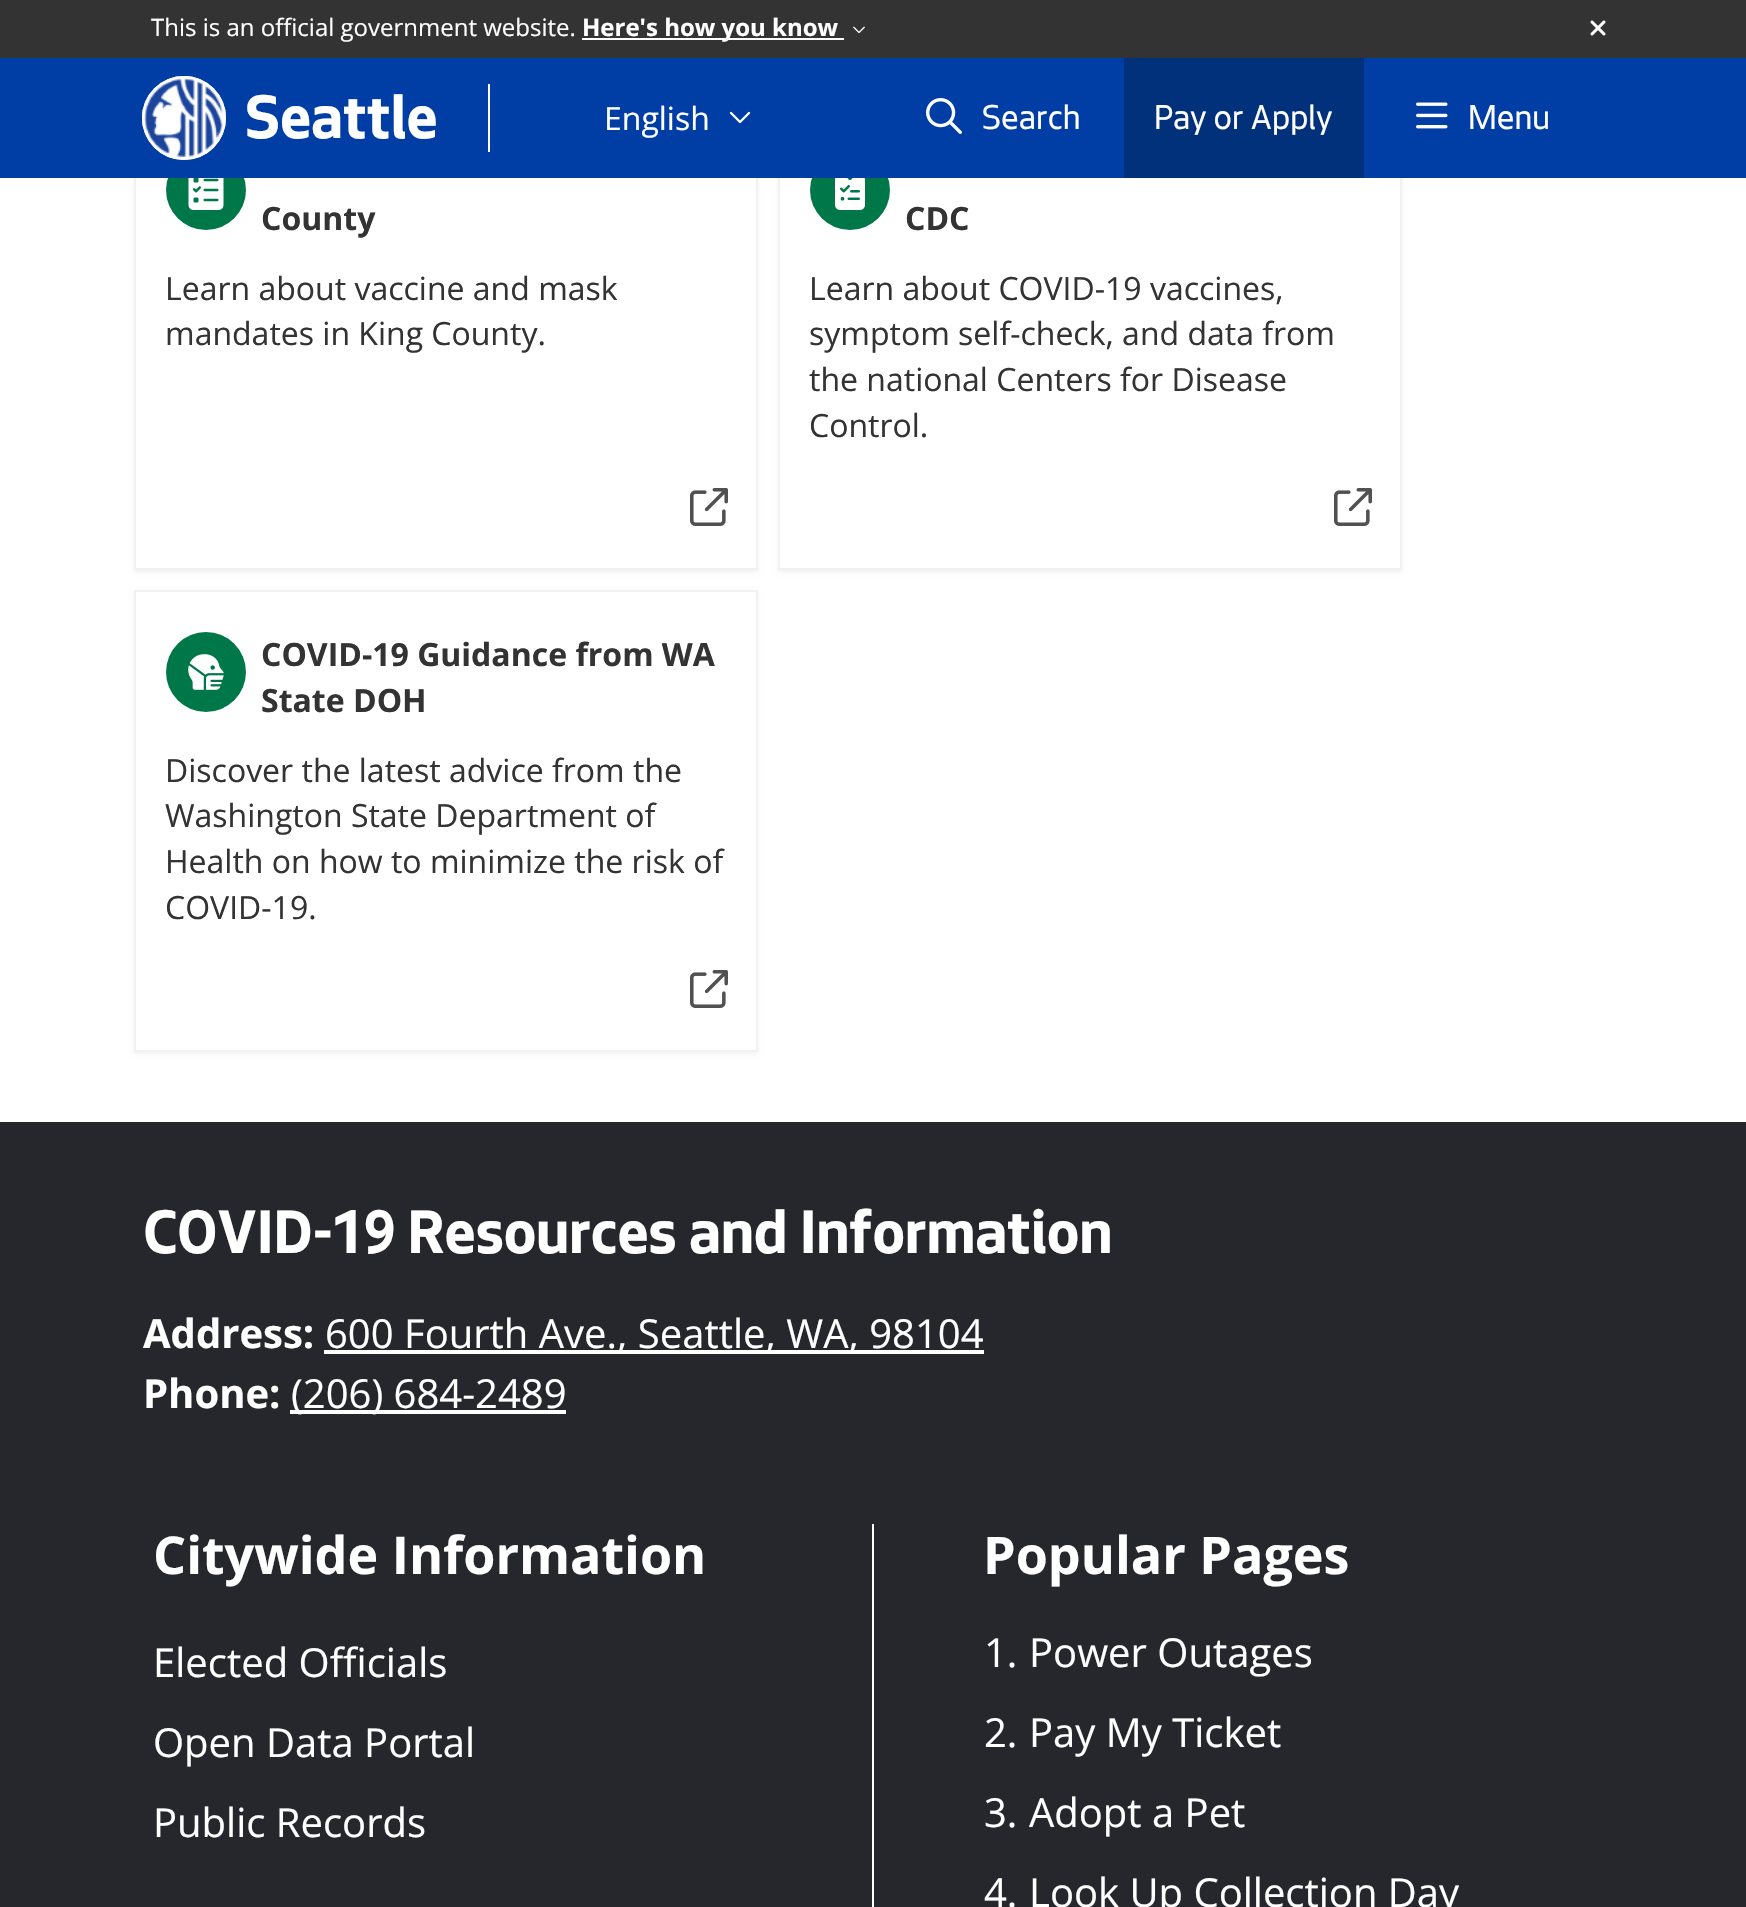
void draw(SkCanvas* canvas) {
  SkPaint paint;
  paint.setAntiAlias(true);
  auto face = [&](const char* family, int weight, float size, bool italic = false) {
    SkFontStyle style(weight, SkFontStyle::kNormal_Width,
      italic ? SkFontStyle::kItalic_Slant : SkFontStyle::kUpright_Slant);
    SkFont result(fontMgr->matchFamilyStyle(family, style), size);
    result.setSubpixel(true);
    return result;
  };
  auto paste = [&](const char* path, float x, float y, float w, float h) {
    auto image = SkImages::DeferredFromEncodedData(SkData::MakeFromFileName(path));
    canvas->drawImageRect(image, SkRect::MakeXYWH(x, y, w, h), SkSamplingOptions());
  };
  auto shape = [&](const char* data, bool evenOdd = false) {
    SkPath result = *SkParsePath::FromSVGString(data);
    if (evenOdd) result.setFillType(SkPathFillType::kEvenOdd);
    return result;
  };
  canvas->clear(0xffffffff);
  canvas->save();
  canvas->clipPath(shape("M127 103H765V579H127ZM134 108H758V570H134Z", true), true);
  paint.setColor(0xfff1f1f1);
  paint.setMaskFilter(SkMaskFilter::MakeBlur(kNormal_SkBlurStyle, 2));
  canvas->drawRect(SkRect::MakeXYWH(134, 110, 624, 462), paint);
  paint.setMaskFilter(nullptr);
  canvas->restore();
  paint.setStroke(true);
  paint.setStrokeWidth(2);
  canvas->drawRect(SkRect::MakeXYWH(135, 109, 622, 460), paint);
  paint.setStroke(false);
  paint.setColor(0xff007749);
  canvas->drawCircle(206, 190, 40, paint);
  canvas->save();
  canvas->clipPath(shape("M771 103H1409V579H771ZM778 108H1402V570H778Z", true), true);
  paint.setColor(0xfff1f1f1);
  paint.setMaskFilter(SkMaskFilter::MakeBlur(kNormal_SkBlurStyle, 2));
  canvas->drawRect(SkRect::MakeXYWH(778, 110, 624, 462), paint);
  paint.setMaskFilter(nullptr);
  canvas->restore();
  paint.setStroke(true);
  canvas->drawRect(SkRect::MakeXYWH(779, 109, 622, 460), paint);
  paint.setStroke(false);
  paint.setColor(0xff007749);
  canvas->drawCircle(850, 190, 40, paint);
  {
    const struct { float x, y, w, h; SkColor color; } items[] = {
      {0, 58, 1746, 120, 0xff003da5},
      {0, 0, 1746, 58, 0xff333333},
      {582, 38, 262, 2, 0xffffffff},
    };
    for (auto [x, y, w, h, color] : items) {
      paint.setColor(color);
      canvas->drawRect(SkRect::MakeXYWH(x, y, w, h), paint);
    }
  }
  paste("img/1.png", 853, 26, 12, 8);
  paste("img/2.png", 1590, 20, 16, 16);
  canvas->drawCircle(184, 118, 42, paint);
  paste("img/3.png", 142, 76, 84, 84);
  paint.setStroke(true);
  canvas->drawCircle(184, 118, 41, paint);
  paint.setStroke(false);
  canvas->drawRect(SkRect::MakeXYWH(488, 84, 2, 68), paint);
  paste("img/4.png", 729, 111, 22, 13);
  paste("img/5.png", 926, 98, 36, 36);
  paint.setColor(0xff00317a);
  canvas->drawRect(SkRect::MakeXYWH(1124, 58, 240, 120), paint);
  paste("img/6.png", 1416, 102, 32, 27);
  paste("img/7.png", 188, 178, 36, 32);
  paste("img/8.png", 690, 488, 38, 38);
  paste("img/9.png", 835, 178, 30, 32);
  paste("img/8.png", 1334, 488, 38, 38);
  canvas->save();
  canvas->clipPath(shape("M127 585H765V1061H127ZM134 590H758V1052H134Z", true), true);
  paint.setColor(0xfff1f1f1);
  paint.setMaskFilter(SkMaskFilter::MakeBlur(kNormal_SkBlurStyle, 2));
  canvas->drawRect(SkRect::MakeXYWH(134, 592, 624, 462), paint);
  paint.setMaskFilter(nullptr);
  canvas->restore();
  paint.setStroke(true);
  canvas->drawRect(SkRect::MakeXYWH(135, 591, 622, 460), paint);
  paint.setStroke(false);
  paint.setColor(0xff007749);
  canvas->drawCircle(206, 672, 40, paint);
  paste("img/10.png", 188, 654, 36, 36);
  paste("img/8.png", 690, 970, 38, 38);
  {
    const struct { float x, y, w, h; SkColor color; } items[] = {
      {0, 1122, 1746, 785, 0xff26272d},
      {324, 1350, 660, 4, 0xffffffff},
      {290, 1410, 276, 4, 0xffffffff},
      {872, 1524, 2, 383, 0xffffffff},
    };
    for (auto [x, y, w, h, color] : items) {
      paint.setColor(color);
      canvas->drawRect(SkRect::MakeXYWH(x, y, w, h), paint);
    }
  }
  auto f0 = face("Open Sans", 400, 24);
  canvas->drawString("This is an official government website.", 151, 36, f0, paint);
  auto f1 = face("Open Sans", 700, 24);
  canvas->drawString("Here's how you know", 582, 36, f1, paint);
  auto f2 = face("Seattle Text", 700, 64);
  canvas->drawString("Seattle", 245, 138, f2, paint);
  auto f3 = face("Open Sans", 400, 32);
  canvas->drawString("English", 604, 130, f3, paint);
  auto f4 = face("Seattle Text", 400, 36);
  {
    const struct { const char* s; float x, y; } items[] = {
      {"Search", 982, 129},
      {"Pay or Apply", 1154, 129},
      {"Menu", 1468, 129},
    };
    for (auto [s, x, y] : items) {
      canvas->drawString(s, x, y, f4, paint);
    }
  }
  auto f5 = face("Open Sans", 700, 32);
  paint.setColor(0xff333333);
  canvas->drawString("County", 261, 230, f5, paint);
  canvas->drawString("Learn about vaccine and mask", 165, 300, f3, paint);
  canvas->drawString("mandates in King County.", 165, 345, f3, paint);
  canvas->drawString("CDC", 905, 230, f5, paint);
  {
    const struct { const char* s; float x, y; } items[] = {
      {"Learn about COVID-19 vaccines,", 809, 300},
      {"symptom self-check, and data from", 809, 345},
      {"the national Centers for Disease", 809, 391},
      {"Control.", 809, 437},
    };
    for (auto [s, x, y] : items) {
      canvas->drawString(s, x, y, f3, paint);
    }
  }
  canvas->drawString("COVID-19 Guidance from WA", 261, 666, f5, paint);
  canvas->drawString("State DOH", 261, 712, f5, paint);
  {
    const struct { const char* s; float x, y; } items[] = {
      {"Discover the latest advice from the", 165, 782},
      {"Washington State Department of", 165, 827},
      {"Health on how to minimize the risk of", 165, 873},
      {"COVID-19.", 165, 919},
    };
    for (auto [s, x, y] : items) {
      canvas->drawString(s, x, y, f3, paint);
    }
  }
  paint.setColor(0xffffffff);
  canvas->drawString("COVID-19 Resources and Information", 143, 1253, f2, paint);
  auto f6 = face("Open Sans", 700, 40);
  canvas->drawString("Address:", 143, 1348, f6, paint);
  auto f7 = face("Open Sans", 400, 40);
  canvas->drawString("600 Fourth Ave., Seattle, WA, 98104", 325, 1348, f7, paint);
  canvas->drawString("Phone:", 143, 1408, f6, paint);
  canvas->drawString("(206) 684-2489", 291, 1408, f7, paint);
  auto f8 = face("Open Sans", 700, 52);
  canvas->drawString("Citywide Information", 153, 1574, f8, paint);
  {
    const struct { const char* s; float x, y; } items[] = {
      {"Elected Officials", 153, 1677},
      {"Open Data Portal", 153, 1757},
      {"Public Records", 153, 1837},
    };
    for (auto [s, x, y] : items) {
      canvas->drawString(s, x, y, f7, paint);
    }
  }
  canvas->drawString("Popular Pages", 983, 1574, f8, paint);
  {
    const struct { const char* s; float x, y; } items[] = {
      {"1.", 984, 1667},
      {"Power Outages", 1029, 1667},
      {"2.", 984, 1747},
      {"Pay My Ticket", 1029, 1747},
      {"3.", 984, 1827},
      {"Adopt a Pet", 1029, 1827},
      {"4.", 984, 1907},
      {"Look Up Collection Day", 1029, 1907},
    };
    for (auto [s, x, y] : items) {
      canvas->drawString(s, x, y, f7, paint);
    }
  }
}
